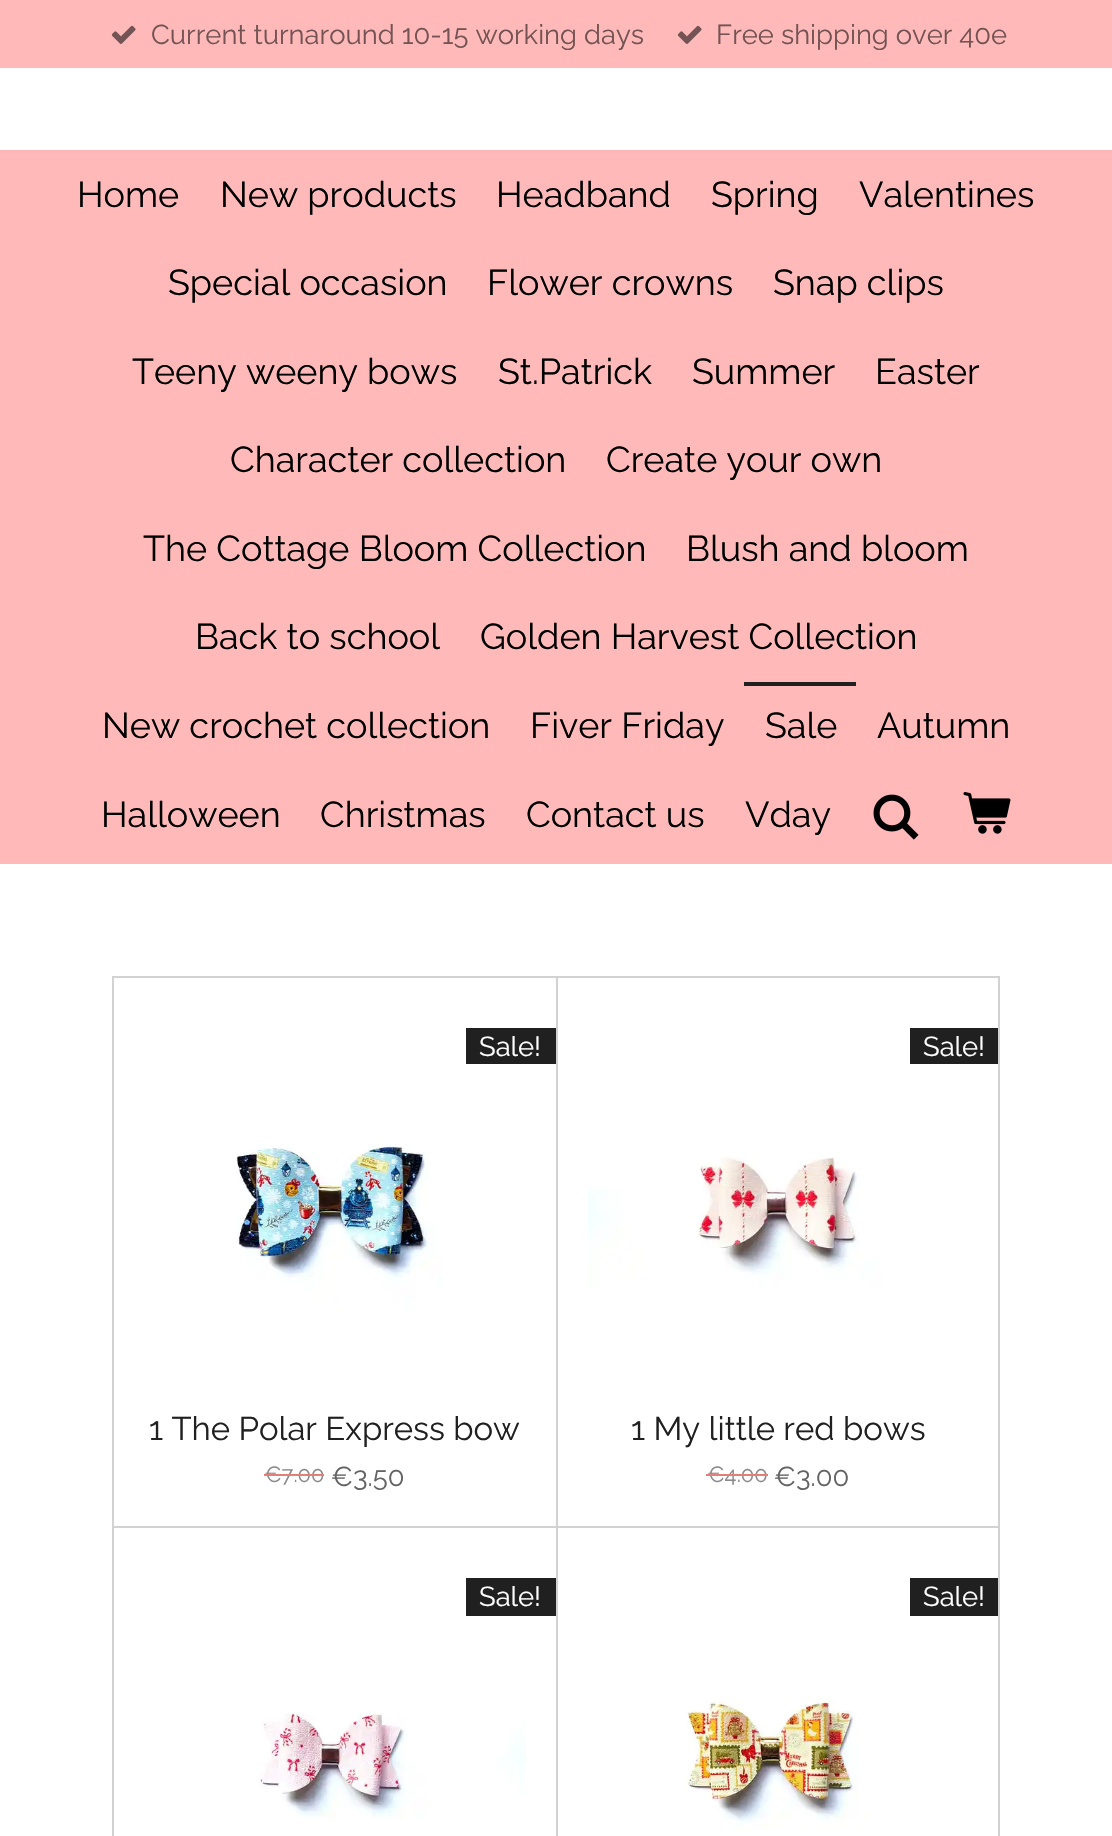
void draw(SkCanvas* canvas) {
  SkPaint paint;
  paint.setAntiAlias(true);
  auto face = [&](const char* family, int weight, float size, bool italic = false) {
    SkFontStyle style(weight, SkFontStyle::kNormal_Width,
      italic ? SkFontStyle::kItalic_Slant : SkFontStyle::kUpright_Slant);
    SkFont result(fontMgr->matchFamilyStyle(family, style), size);
    result.setSubpixel(true);
    return result;
  };
  auto paste = [&](const char* path, float x, float y, float w, float h) {
    auto image = SkImages::DeferredFromEncodedData(SkData::MakeFromFileName(path));
    canvas->drawImageRect(image, SkRect::MakeXYWH(x, y, w, h), SkSamplingOptions());
  };
  canvas->clear(0xffffffff);
  paint.setColor(0xffffb9b9);
  canvas->drawRect(SkRect::MakeXYWH(0, 0, 1112, 68), paint);
  paste("img/1.png", 111, 25, 25, 19);
  paste("img/1.png", 677, 25, 25, 19);
  canvas->drawRect(SkRect::MakeXYWH(0, 150, 1112, 714), paint);
  paint.setColor(0xff202020);
  canvas->drawRect(SkRect::MakeXYWH(744, 682, 112, 4), paint);
  paste("img/2.png", 873, 794, 46, 46);
  paste("img/3.png", 963, 792, 48, 42);
  paint.setStroke(true);
  paint.setStrokeWidth(2);
  paint.setColor(0xffd2d2d2);
  canvas->drawRect(SkRect::MakeXYWH(113, 977, 444, 550), paint);
  paint.setStroke(false);
  paint.setColor(0xff202020);
  canvas->drawRect(SkRect::MakeXYWH(466, 1028, 90, 36), paint);
  paste("img/4.png", 236, 1145, 207, 166);
  paint.setStroke(true);
  paint.setColor(0xffd2d2d2);
  canvas->drawRect(SkRect::MakeXYWH(557, 977, 442, 550), paint);
  paint.setStroke(false);
  paint.setColor(0xff202020);
  canvas->drawRect(SkRect::MakeXYWH(910, 1028, 88, 36), paint);
  paste("img/5.png", 588, 1156, 295, 132);
  paint.setStroke(true);
  paint.setColor(0xffd2d2d2);
  canvas->drawRect(SkRect::MakeXYWH(113, 1527, 444, 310), paint);
  paint.setStroke(false);
  paint.setColor(0xff202020);
  canvas->drawRect(SkRect::MakeXYWH(466, 1578, 90, 38), paint);
  paste("img/6.png", 260, 1711, 266, 107);
  paint.setStroke(true);
  paint.setColor(0xffd2d2d2);
  canvas->drawRect(SkRect::MakeXYWH(557, 1527, 442, 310), paint);
  paint.setStroke(false);
  paint.setColor(0xff202020);
  canvas->drawRect(SkRect::MakeXYWH(910, 1578, 88, 38), paint);
  paste("img/7.png", 686, 1698, 181, 132);
  auto f0 = face("Raleway", 400, 27.4f);
  paint.setColor(0xff735353);
  canvas->drawString("Current turnaround 10-15 working days", 151, 44, f0, paint);
  canvas->drawString("Free shipping over 40e", 716, 44, f0, paint);
  auto f1 = face("Raleway", 400, 36);
  paint.setColor(0xff000000);
  {
    const struct { const char* s; float x, y; } items[] = {
      {"Home", 77, 207},
      {"New products", 220, 207},
      {"Headband", 496, 207},
      {"Spring", 711, 207},
      {"Valentines", 859, 207},
      {"Special occasion", 168, 295},
      {"Flower crowns", 487, 295},
      {"Snap clips", 773, 295},
      {"Teeny weeny bows", 132, 384},
      {"St.Patrick", 498, 384},
      {"Summer", 692, 384},
      {"Easter", 875, 384},
      {"Character collection", 230, 472},
      {"Create your own", 606, 472},
      {"The Cottage Bloom Collection", 143, 561},
      {"Blush and bloom", 686, 561},
      {"Back to school", 195, 649},
      {"Golden Harvest Collection", 480, 649},
      {"New crochet collection", 102, 738},
      {"Fiver Friday", 530, 738},
      {"Sale", 765, 738},
      {"Autumn", 877, 738},
      {"Halloween", 101, 827},
      {"Christmas", 320, 827},
      {"Contact us", 526, 827},
      {"Vday", 745, 827},
    };
    for (auto [s, x, y] : items) {
      canvas->drawString(s, x, y, f1, paint);
    }
  }
  paint.setColor(0xffffffff);
  canvas->drawString("Sale!", 479, 1056, f0, paint);
  auto f2 = face("Raleway", 400, 32.9f);
  paint.setColor(0xff202020);
  canvas->drawString("1 The Polar Express bow", 149, 1440, f2, paint);
  auto f3 = face("Raleway", 400, 22);
  paint.setColor(0xff8a8a8a);
  canvas->drawString("€7.00", 264, 1482, f3, paint);
  paint.setColor(0xffe37e7b);
  canvas->drawRect(SkRect::MakeXYWH(264, 1474, 60, 2), paint);
  paint.setColor(0xff636363);
  canvas->drawString("€3.50", 331, 1486, f0, paint);
  paint.setColor(0xffffffff);
  canvas->drawString("Sale!", 923, 1056, f0, paint);
  paint.setColor(0xff202020);
  canvas->drawString("1 My little red bows", 631, 1440, f2, paint);
  paint.setColor(0xff8a8a8a);
  canvas->drawString("€4.00", 707, 1482, f3, paint);
  paint.setColor(0xffe37e7b);
  canvas->drawRect(SkRect::MakeXYWH(706, 1474, 62, 2), paint);
  paint.setColor(0xff636363);
  canvas->drawString("€3.00", 774, 1486, f0, paint);
  paint.setColor(0xffffffff);
  canvas->drawString("Sale!", 479, 1606, f0, paint);
  canvas->drawString("Sale!", 923, 1606, f0, paint);
}
